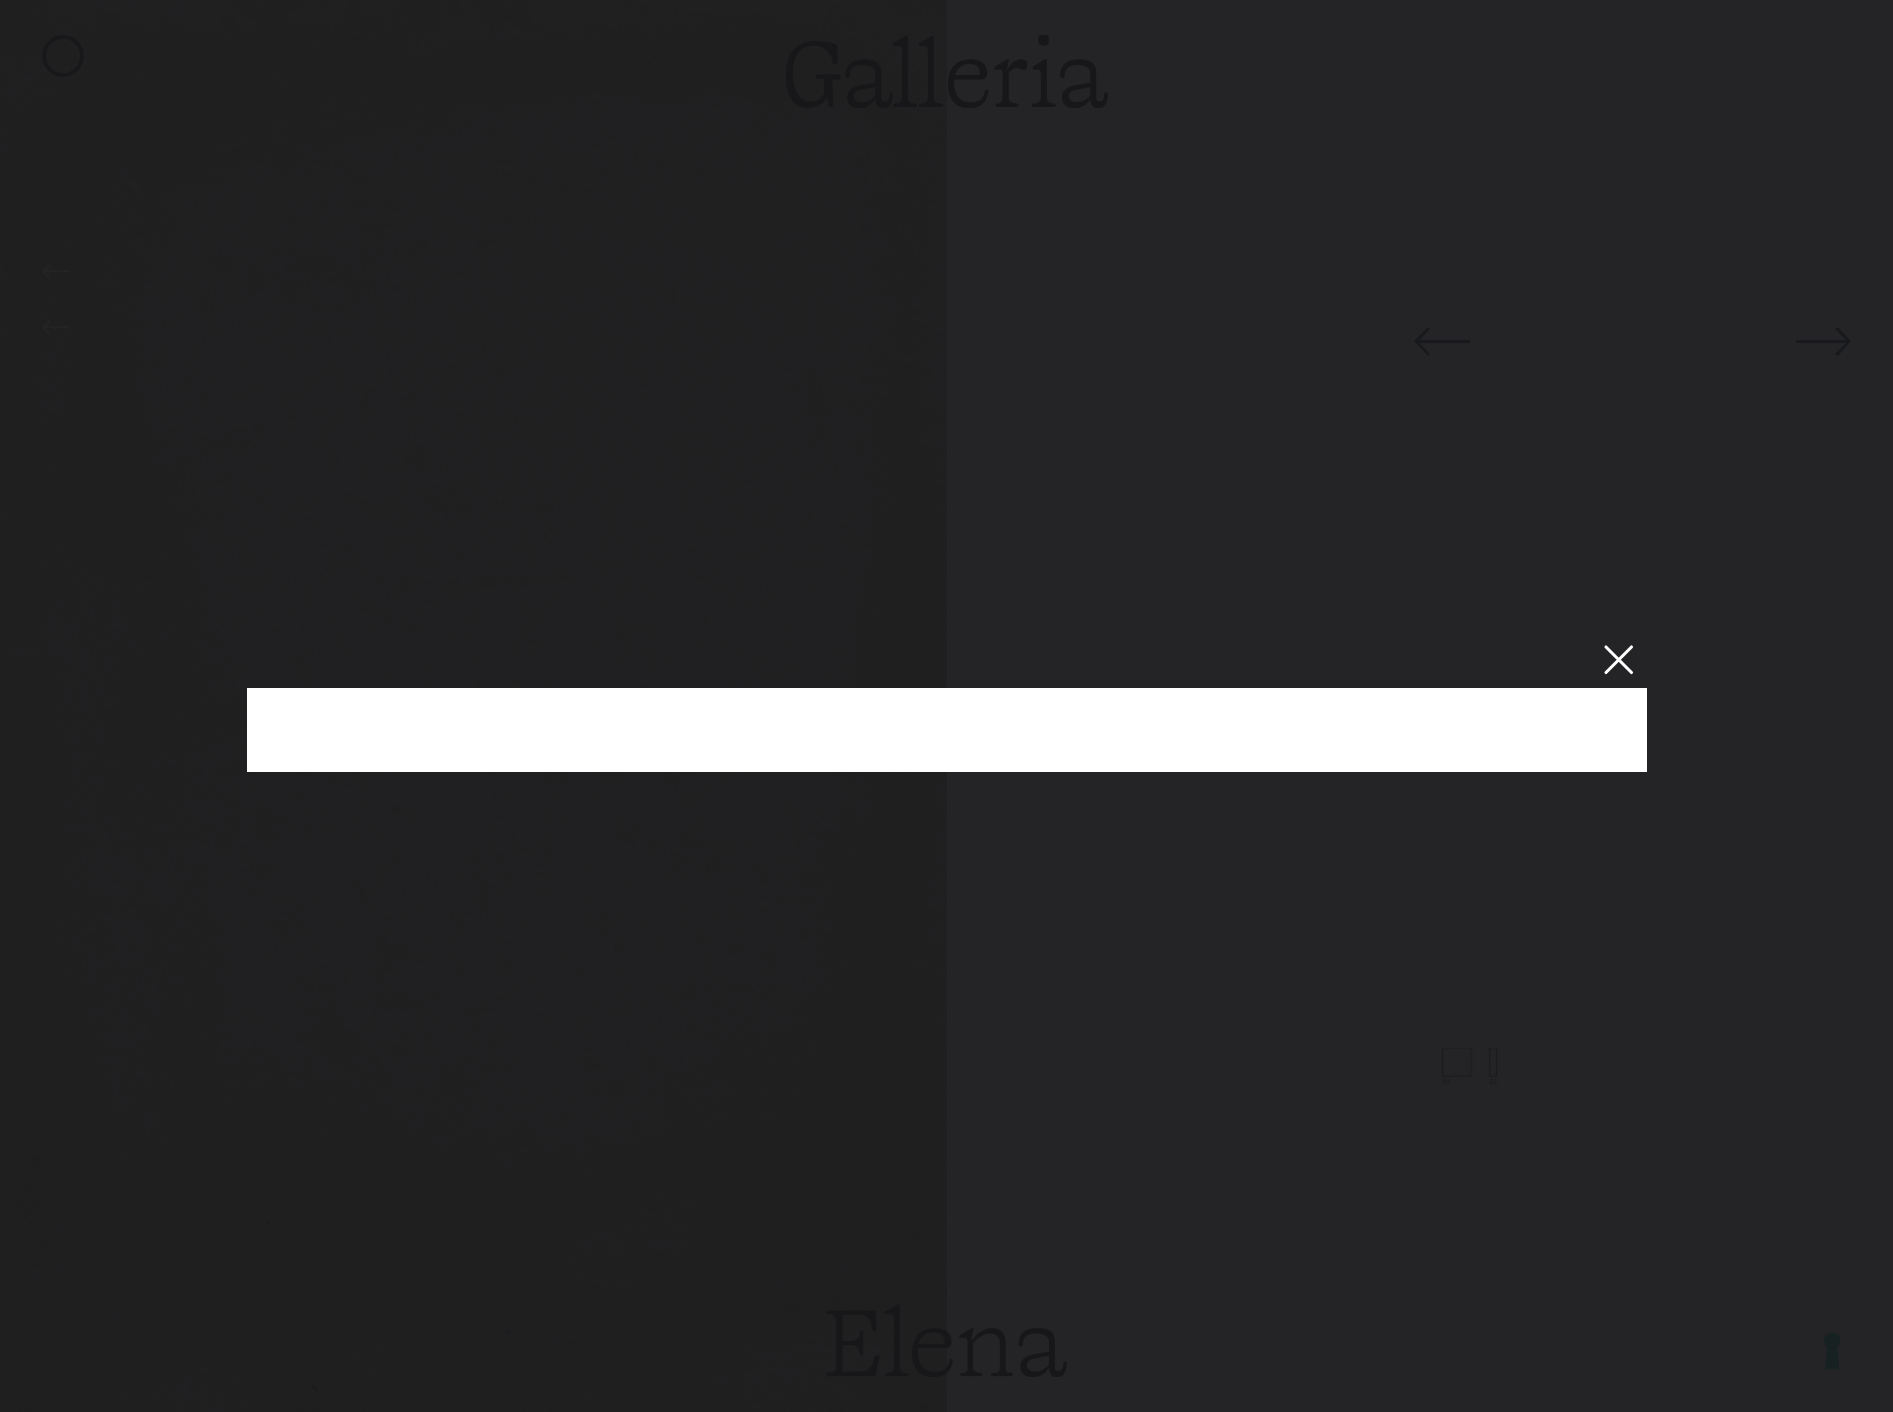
void draw(SkCanvas* canvas) {
  SkPaint paint;
  paint.setAntiAlias(true);
  auto paste = [&](const char* path, float x, float y, float w, float h) {
    auto image = SkImages::DeferredFromEncodedData(SkData::MakeFromFileName(path));
    canvas->drawImageRect(image, SkRect::MakeXYWH(x, y, w, h), SkSamplingOptions());
  };
  auto shape = [&](const char* data, bool evenOdd = false) {
    SkPath result = *SkParsePath::FromSVGString(data);
    if (evenOdd) result.setFillType(SkPathFillType::kEvenOdd);
    return result;
  };
  canvas->clear(0xff242426);
  paste("img/1.png", 0, 0, 947, 1412);
  paint.setColor(0xff18191c);
  canvas->drawPath(shape("M1470 340H1420L1430 329L1428 327L1414 341L1428 356L1430 354L1420 343H1470Z"), paint);
  canvas->drawPath(shape("M1796 340H1846L1835 329L1838 327L1851 341L1838 356L1835 354L1846 343H1796Z"), paint);
  paste("img/2.png", 1441, 1047, 58, 38);
  paint.setColor(0xff242426);
  canvas->drawPath(shape("M70 270.5H45L50 265L49 264L42 271.5L49 278.5L50 277.5L45 272H70Z"), paint);
  canvas->drawPath(shape("M70 326.5H45L50 321L49 320L42 327.5L49 334.5L50 333.5L45 328H70Z"), paint);
  paint.setStroke(true);
  paint.setStrokeWidth(4);
  paint.setColor(0xff18181b);
  canvas->drawCircle(63, 56, 19, paint);
  paste("img/3.png", 785, 35, 323, 73);
  paste("img/4.png", 785, 35, 323, 73);
  paint.setStroke(false);
  paint.setColor(0xffffffff);
  canvas->drawRect(SkRect::MakeXYWH(247, 688, 1400, 84), paint);
  paint.setStroke(true);
  paint.setStrokeWidth(3.1f);
  paint.setStrokeCap(SkPaint::kRound_Cap);
  paint.setStrokeJoin(SkPaint::kRound_Join);
  canvas->drawPath(shape("M1631.5 647L1606 672.5M1606 647L1631.5 672.5"), paint);
  paste("img/5.png", 826, 1304, 241, 73);
  paint.setStroke(false);
  paint.setColor(0xff182121);
  canvas->drawPath(shape("M1832 1332.5C1840 1332.5 1843.5 1342 1837.5 1347L1839.5 1369.5H1825L1827 1347C1821 1342 1824.5 1332.5 1832 1332.5Z", true), paint);
}
